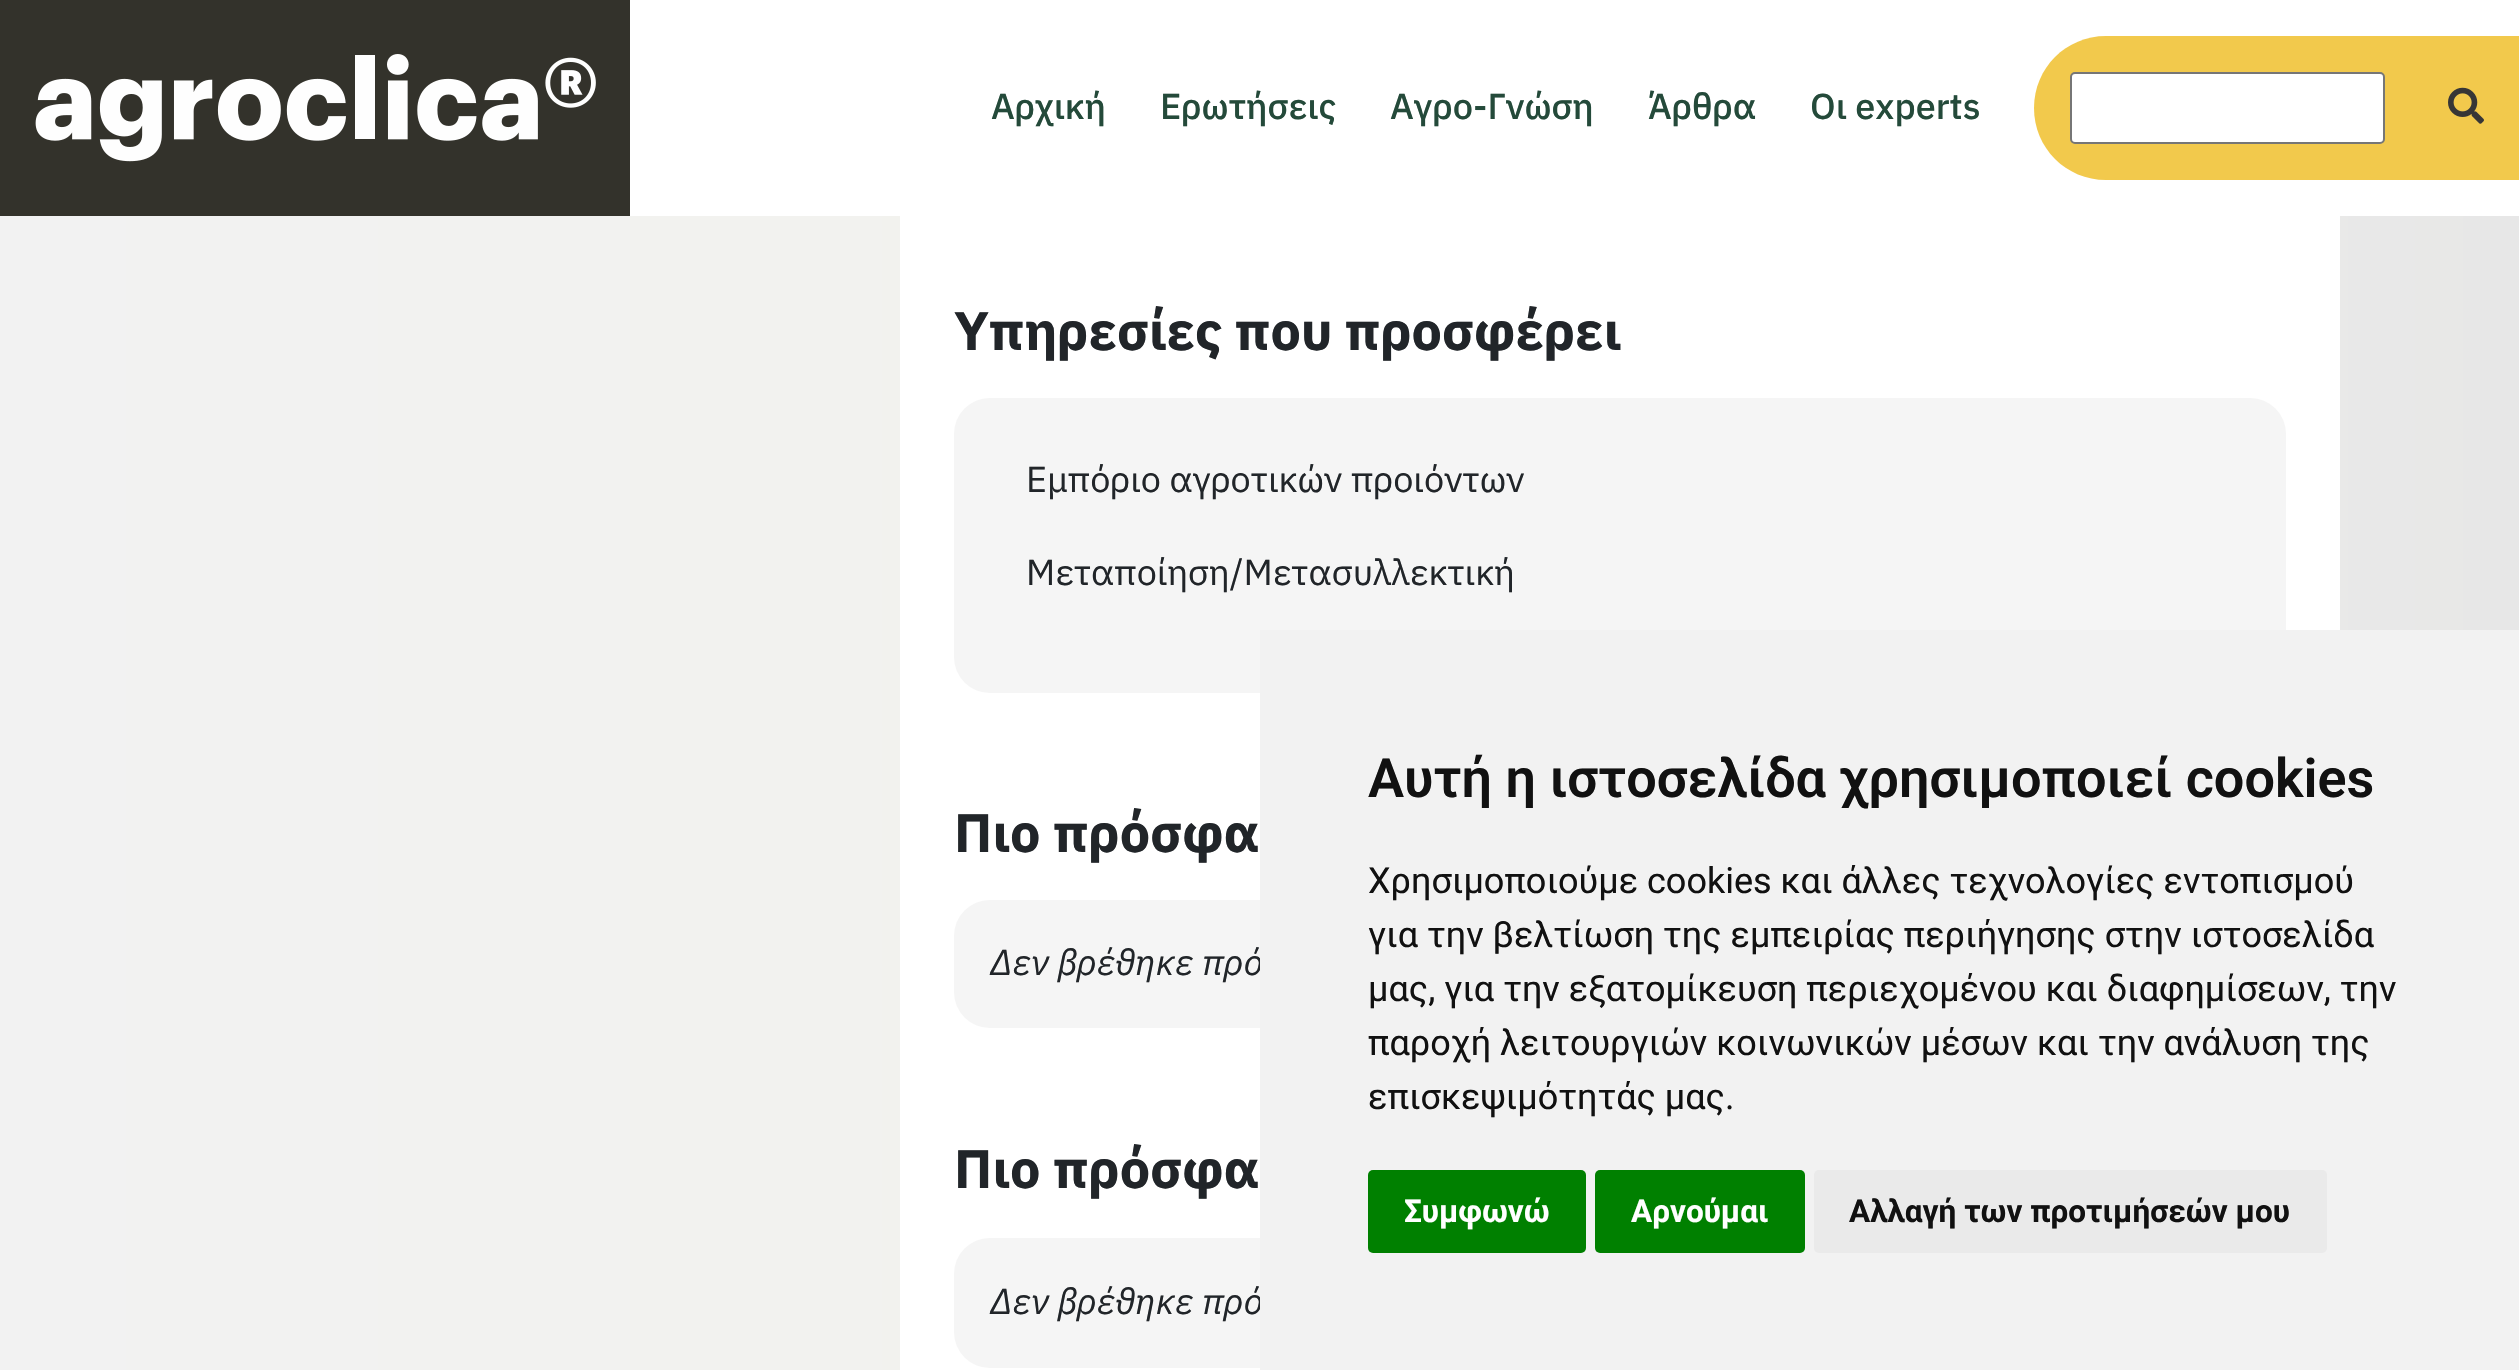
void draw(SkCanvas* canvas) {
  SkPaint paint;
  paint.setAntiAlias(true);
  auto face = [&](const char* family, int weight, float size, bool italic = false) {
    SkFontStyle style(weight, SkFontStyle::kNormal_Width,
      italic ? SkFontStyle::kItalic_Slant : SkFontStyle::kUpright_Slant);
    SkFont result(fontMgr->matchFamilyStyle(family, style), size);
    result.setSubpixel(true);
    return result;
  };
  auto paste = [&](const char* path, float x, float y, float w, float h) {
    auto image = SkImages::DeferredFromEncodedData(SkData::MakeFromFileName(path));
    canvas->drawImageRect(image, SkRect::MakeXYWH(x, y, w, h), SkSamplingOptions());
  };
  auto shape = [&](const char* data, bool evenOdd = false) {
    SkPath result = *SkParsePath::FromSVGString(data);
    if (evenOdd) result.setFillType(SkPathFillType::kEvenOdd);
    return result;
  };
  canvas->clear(0xffffffff);
  {
    const SkColor colors[] = {0xfff2f2f2, 0xfff2f2ed, 0xffe7e7e7};
    const float stops[] = {0, 0.5f, 1};
    const SkPoint ends[] = {{0, 651}, {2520, 651}};
    paint.setShader(SkGradientShader::MakeLinear(ends, colors, stops, 3, SkTileMode::kClamp));
    paint.setAlpha(255);
  }
  canvas->drawRect(SkRect::MakeXYWH(0, 216, 2519, 1154), paint);
  paint.setShader(nullptr);
  paint.setColor(0xff33322b);
  canvas->drawRect(SkRect::MakeXYWH(0, 0, 630, 216), paint);
  paste("img/1.png", 35, 54, 561, 108);
  paint.setColor(0xfff2c94c);
  canvas->drawPath(shape("M2106 36H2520V180H2106C2066 180 2034 148 2034 108C2034 68 2066 36 2106 36Z"), paint);
  paint.setColor(0xffffffff);
  canvas->drawRoundRect(SkRect::MakeXYWH(2071, 73, 313, 70), 4, 4, paint);
  paint.setStroke(true);
  paint.setStrokeWidth(2);
  paint.setColor(0xff767676);
  canvas->drawRoundRect(SkRect::MakeXYWH(2071, 73, 313, 70), 4, 4, paint);
  paste("img/2.png", 2448, 87, 36, 37);
  paint.setStroke(false);
  paint.setColor(0xffffffff);
  canvas->drawRect(SkRect::MakeXYWH(900, 216, 1440, 1154), paint);
  paint.setColor(0xfff5f5f5);
  canvas->drawRoundRect(SkRect::MakeXYWH(954, 398, 1332, 295), 36, 36, paint);
  canvas->drawRoundRect(SkRect::MakeXYWH(954, 900, 1332, 128), 36, 36, paint);
  canvas->drawRoundRect(SkRect::MakeXYWH(954, 1238, 1332, 130), 36, 36, paint);
  auto f0 = face("IBM Plex Sans", 500, 36);
  paint.setColor(0xff244a3a);
  {
    const struct { const char* s; float x, y; } items[] = {
      {"Αρχική", 991, 119},
      {"Ερωτήσεις", 1160, 119},
      {"Αγρο-Γνώση", 1390, 119},
      {"Άρθρα", 1648, 119},
      {"Οι experts", 1810, 119},
    };
    for (auto [s, x, y] : items) {
      canvas->drawString(s, x, y, f0, paint);
    }
  }
  auto f1 = face("IBM Plex Sans", 700, 54);
  paint.setColor(0xff212529);
  canvas->drawString("Υπηρεσίες που προσφέρει", 954, 350, f1, paint);
  auto f2 = face("IBM Plex Sans", 400, 36);
  canvas->drawString("Εμπόριο αγροτικών προιόντων", 1026, 492, f2, paint);
  canvas->drawString("Μεταποίηση/Μετασυλλεκτική", 1026, 585, f2, paint);
  canvas->drawString("Πιο πρόσφα", 954, 852, f1, paint);
  auto f3 = face("IBM Plex Sans", 400, 36, true);
  canvas->drawString("Δεν βρέθηκε πρό", 990, 975, f3, paint);
  canvas->drawString("Πιο πρόσφα", 954, 1188, f1, paint);
  canvas->drawString("Δεν βρέθηκε πρό", 990, 1314, f3, paint);
  paint.setColor(0xfff2f2f2);
  canvas->drawRect(SkRect::MakeXYWH(1260, 630, 1259, 740), paint);
  auto f4 = face("Roboto", 600, 54);
  paint.setColor(0xff111111);
  canvas->drawString("Αυτή η ιστοσελίδα χρησιμοποιεί cookies", 1368, 797, f4, paint);
  auto f5 = face("Roboto", 400, 36);
  {
    const struct { const char* s; float x, y; } items[] = {
      {"Χρησιμοποιούμε cookies και άλλες τεχνολογίες εντοπισμού", 1368, 893},
      {"για την βελτίωση της εμπειρίας περιήγησης στην ιστοσελίδα", 1368, 947},
      {"μας, για την εξατομίκευση περιεχομένου και διαφημίσεων, την", 1368, 1001},
      {"παροχή λειτουργιών κοινωνικών μέσων και την ανάλυση της", 1368, 1055},
      {"επισκεψιμότητάς μας.", 1368, 1109},
    };
    for (auto [s, x, y] : items) {
      canvas->drawString(s, x, y, f5, paint);
    }
  }
  paint.setColor(0xff008000);
  canvas->drawRoundRect(SkRect::MakeXYWH(1368, 1170, 218, 83), 5, 5, paint);
  auto f6 = face("Roboto", 700, 31.5f);
  paint.setColor(0xffffffff);
  canvas->drawString("Συμφωνώ", 1404, 1222, f6, paint);
  paint.setColor(0xff008000);
  canvas->drawRoundRect(SkRect::MakeXYWH(1595, 1170, 210, 83), 5, 5, paint);
  paint.setColor(0xffffffff);
  canvas->drawString("Αρνούμαι", 1631, 1222, f6, paint);
  paint.setColor(0xffeaeaea);
  canvas->drawRoundRect(SkRect::MakeXYWH(1814, 1170, 513, 83), 5, 5, paint);
  paint.setColor(0xff111111);
  canvas->drawString("Αλλαγή των προτιμήσεών μου", 1849, 1222, f6, paint);
}
